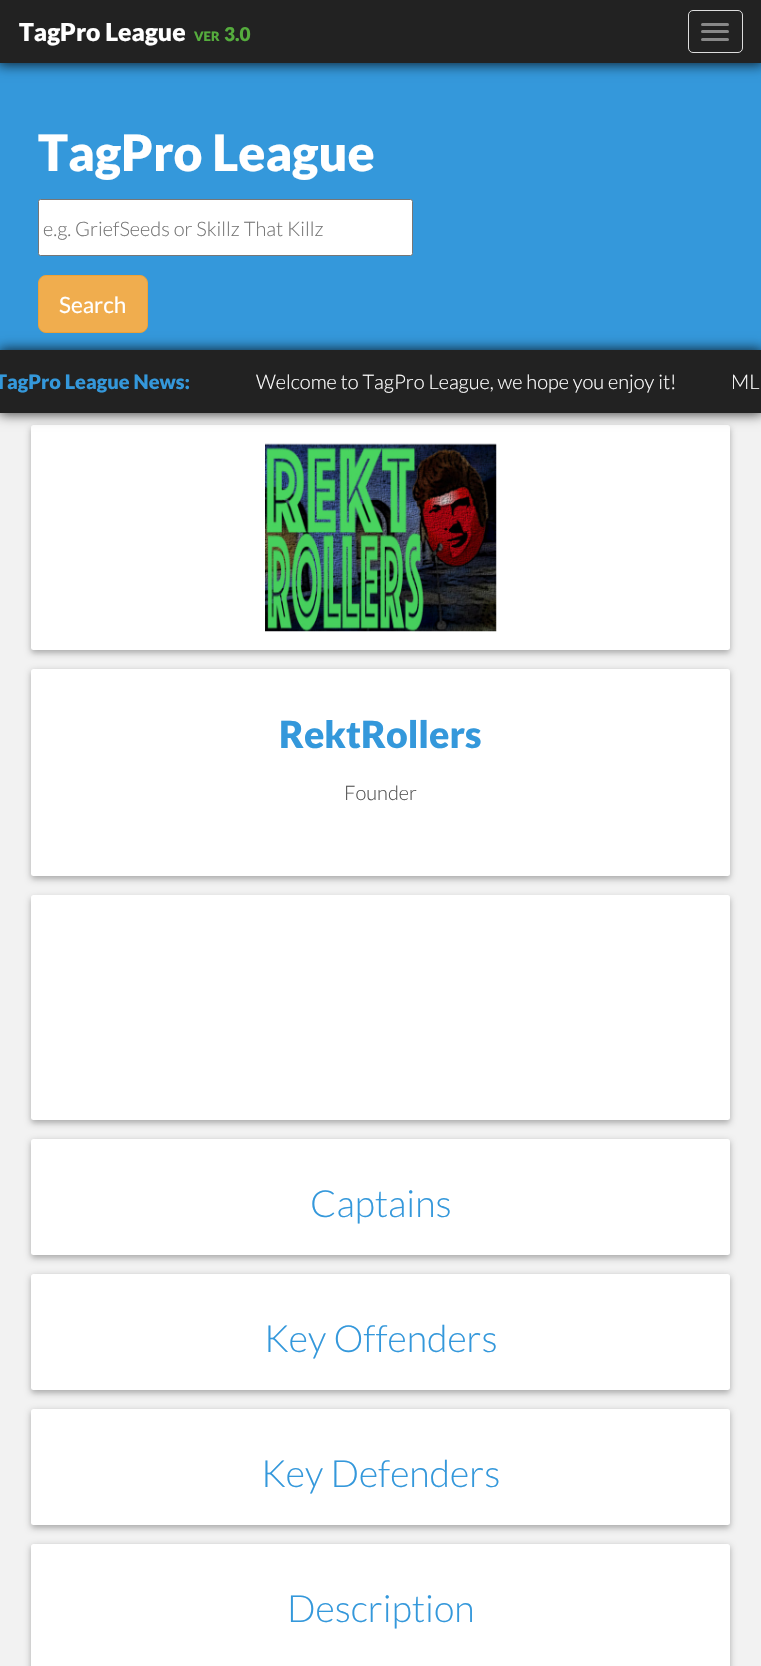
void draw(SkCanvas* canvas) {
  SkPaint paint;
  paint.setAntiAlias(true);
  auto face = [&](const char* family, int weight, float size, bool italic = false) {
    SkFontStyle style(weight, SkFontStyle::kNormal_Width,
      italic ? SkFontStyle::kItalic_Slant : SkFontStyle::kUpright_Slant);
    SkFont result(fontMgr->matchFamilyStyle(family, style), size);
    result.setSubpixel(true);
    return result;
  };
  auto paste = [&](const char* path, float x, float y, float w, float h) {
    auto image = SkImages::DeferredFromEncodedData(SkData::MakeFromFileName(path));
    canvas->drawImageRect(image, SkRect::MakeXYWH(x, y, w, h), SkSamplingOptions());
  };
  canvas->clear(0xff3498db);
  paint.setColor(0xbf000000);
  paint.setMaskFilter(SkMaskFilter::MakeBlur(kNormal_SkBlurStyle, 6));
  canvas->drawRect(SkRect::MakeXYWH(-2, -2, 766, 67), paint);
  paint.setMaskFilter(nullptr);
  paint.setColor(0xff222222);
  canvas->drawRect(SkRect::MakeXYWH(0, 0, 761, 63), paint);
  paint.setStroke(true);
  paint.setStrokeWidth(1);
  paint.setColor(0xffdddddd);
  canvas->drawRoundRect(SkRect::MakeXYWH(688.5f, 10.5f, 54, 42), 4.5f, 4.5f, paint);
  paint.setStroke(false);
  paint.setColor(0xff888888);
  canvas->drawRoundRect(SkRect::MakeXYWH(701, 23, 28, 3), 1.5f, 1.5f, paint);
  canvas->drawRoundRect(SkRect::MakeXYWH(701, 30, 28, 3), 1.5f, 1.5f, paint);
  canvas->drawRoundRect(SkRect::MakeXYWH(701, 38, 28, 3), 1.5f, 1.5f, paint);
  paint.setColor(0xffffffff);
  canvas->drawRoundRect(SkRect::MakeXYWH(38.5f, 199.5f, 374, 56), 2, 2, paint);
  paint.setStroke(true);
  paint.setColor(0xff767676);
  canvas->drawRoundRect(SkRect::MakeXYWH(38.5f, 199.5f, 374, 56), 2, 2, paint);
  paint.setStroke(false);
  paint.setColor(0xfff0ad4e);
  canvas->drawRoundRect(SkRect::MakeXYWH(38.5f, 275.5f, 109, 57), 7.5f, 7.5f, paint);
  paint.setStroke(true);
  paint.setColor(0xffeea236);
  canvas->drawRoundRect(SkRect::MakeXYWH(38.5f, 275.5f, 109, 57), 7.5f, 7.5f, paint);
  paint.setStroke(false);
  paint.setColor(0xfff2f2f2);
  canvas->drawRect(SkRect::MakeXYWH(0, 413, 761, 1253), paint);
  paint.setColor(0x4d000000);
  paint.setMaskFilter(SkMaskFilter::MakeBlur(kNormal_SkBlurStyle, 3));
  canvas->drawRoundRect(SkRect::MakeXYWH(31, 428, 699, 225), 2.5f, 2.5f, paint);
  paint.setMaskFilter(nullptr);
  paint.setColor(0xffffffff);
  canvas->drawRoundRect(SkRect::MakeXYWH(31, 425, 699, 225), 2.5f, 2.5f, paint);
  paint.setColor(0xbf000000);
  paint.setMaskFilter(SkMaskFilter::MakeBlur(kNormal_SkBlurStyle, 6));
  canvas->drawRect(SkRect::MakeXYWH(-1, 349, 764, 65), paint);
  paint.setMaskFilter(nullptr);
  paint.setColor(0xff222222);
  canvas->drawRect(SkRect::MakeXYWH(0, 350, 761, 63), paint);
  paste("img/1.png", 265, 443, 232, 189);
  paint.setColor(0x4d000000);
  paint.setMaskFilter(SkMaskFilter::MakeBlur(kNormal_SkBlurStyle, 3));
  canvas->drawRoundRect(SkRect::MakeXYWH(31, 671, 699, 208), 2.5f, 2.5f, paint);
  paint.setMaskFilter(nullptr);
  paint.setColor(0xffffffff);
  canvas->drawRoundRect(SkRect::MakeXYWH(31, 669, 699, 207), 2.5f, 2.5f, paint);
  paint.setColor(0x4d000000);
  paint.setMaskFilter(SkMaskFilter::MakeBlur(kNormal_SkBlurStyle, 3));
  canvas->drawRoundRect(SkRect::MakeXYWH(31, 898, 699, 225), 2.5f, 2.5f, paint);
  paint.setMaskFilter(nullptr);
  paint.setColor(0xffffffff);
  canvas->drawRoundRect(SkRect::MakeXYWH(31, 895, 699, 225), 2.5f, 2.5f, paint);
  paint.setColor(0x4d000000);
  paint.setMaskFilter(SkMaskFilter::MakeBlur(kNormal_SkBlurStyle, 3));
  canvas->drawRoundRect(SkRect::MakeXYWH(31, 1141, 699, 117), 2.5f, 2.5f, paint);
  paint.setMaskFilter(nullptr);
  paint.setColor(0xffffffff);
  canvas->drawRoundRect(SkRect::MakeXYWH(31, 1139, 699, 116), 2.5f, 2.5f, paint);
  paint.setColor(0x4d000000);
  paint.setMaskFilter(SkMaskFilter::MakeBlur(kNormal_SkBlurStyle, 3));
  canvas->drawRoundRect(SkRect::MakeXYWH(31, 1276, 699, 117), 2.5f, 2.5f, paint);
  paint.setMaskFilter(nullptr);
  paint.setColor(0xffffffff);
  canvas->drawRoundRect(SkRect::MakeXYWH(31, 1274, 699, 116), 2.5f, 2.5f, paint);
  paint.setColor(0x4d000000);
  paint.setMaskFilter(SkMaskFilter::MakeBlur(kNormal_SkBlurStyle, 3));
  canvas->drawRoundRect(SkRect::MakeXYWH(31, 1411, 699, 117), 2.5f, 2.5f, paint);
  paint.setMaskFilter(nullptr);
  paint.setColor(0xffffffff);
  canvas->drawRoundRect(SkRect::MakeXYWH(31, 1409, 699, 116), 2.5f, 2.5f, paint);
  paint.setColor(0x4d000000);
  paint.setMaskFilter(SkMaskFilter::MakeBlur(kNormal_SkBlurStyle, 3));
  canvas->drawRoundRect(SkRect::MakeXYWH(31, 1546, 699, 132), 2.5f, 2.5f, paint);
  paint.setMaskFilter(nullptr);
  paint.setColor(0xffffffff);
  canvas->drawRoundRect(SkRect::MakeXYWH(31, 1544, 699, 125), 2.5f, 2.5f, paint);
  auto f0 = face("Lato", 900, 24.75f);
  canvas->drawString("TagPro League", 19, 41, f0, paint);
  auto f1 = face("Lato", 900, 13);
  paint.setColor(0xff55ad3d);
  canvas->drawString("VER", 194, 41, f1, paint);
  auto f2 = face("Lato", 900, 19);
  canvas->drawString("3.0", 224, 41, f2, paint);
  auto f3 = face("Lato", 900, 50);
  paint.setColor(0xffffffff);
  canvas->drawString("TagPro League", 38, 171, f3, paint);
  auto f4 = face("Lato", 300, 20);
  paint.setColor(0xff757575);
  canvas->drawString("e.g. GriefSeeds or Skillz That Killz", 43, 236, f4, paint);
  auto f5 = face("Lato", 400, 22.5f);
  paint.setColor(0xffffffff);
  canvas->drawString("Search", 59, 313, f5, paint);
  auto f6 = face("Lato", 900, 20);
  paint.setColor(0xff3498db);
  canvas->drawString("TagPro League News:", -5, 389, f6, paint);
  paint.setColor(0xffffffff);
  canvas->drawString("Welcome to TagPro League, we hope you enjoy it!", 256, 389, f4, paint);
  canvas->drawString("ML", 731, 389, f4, paint);
  auto f7 = face("Lato", 900, 37.5f);
  paint.setColor(0xff3498db);
  canvas->drawString("RektRollers", 279, 748, f7, paint);
  paint.setColor(0xff555555);
  canvas->drawString("Founder", 344, 800, f4, paint);
  auto f8 = face("Lato", 300, 37.5f);
  paint.setColor(0xff3498db);
  {
    const struct { const char* s; float x, y; } items[] = {
      {"Captains", 310, 1217},
      {"Key Offenders", 264, 1352},
      {"Key Defenders", 261, 1487},
      {"Description", 287, 1622},
    };
    for (auto [s, x, y] : items) {
      canvas->drawString(s, x, y, f8, paint);
    }
  }
}
